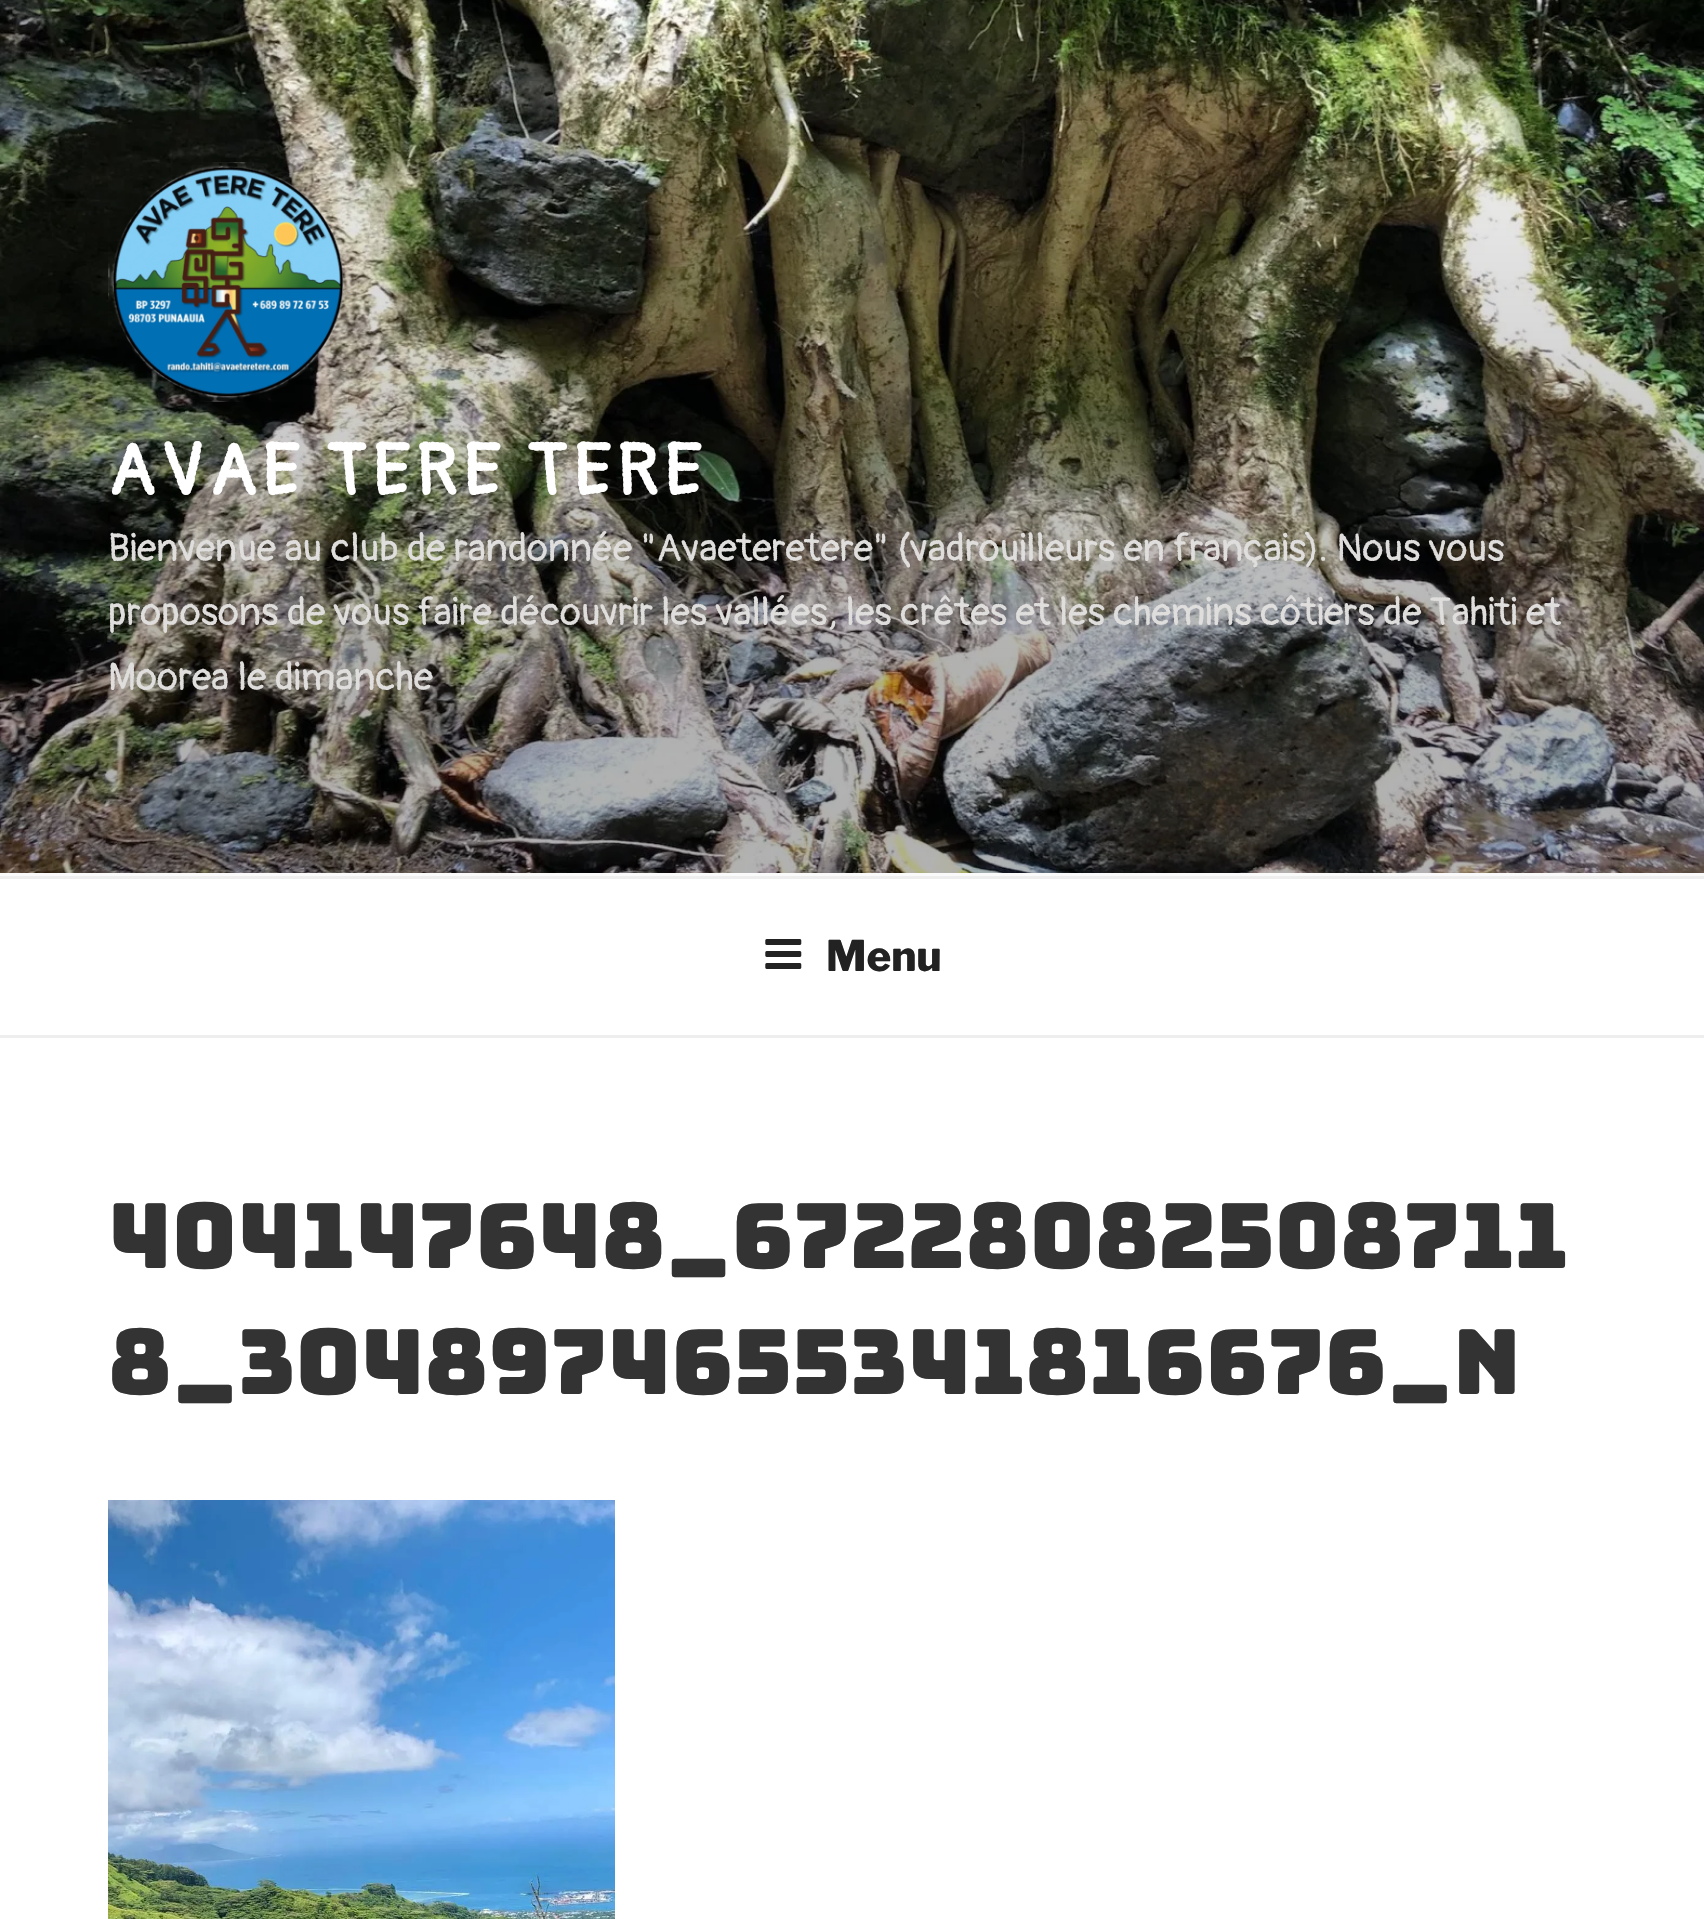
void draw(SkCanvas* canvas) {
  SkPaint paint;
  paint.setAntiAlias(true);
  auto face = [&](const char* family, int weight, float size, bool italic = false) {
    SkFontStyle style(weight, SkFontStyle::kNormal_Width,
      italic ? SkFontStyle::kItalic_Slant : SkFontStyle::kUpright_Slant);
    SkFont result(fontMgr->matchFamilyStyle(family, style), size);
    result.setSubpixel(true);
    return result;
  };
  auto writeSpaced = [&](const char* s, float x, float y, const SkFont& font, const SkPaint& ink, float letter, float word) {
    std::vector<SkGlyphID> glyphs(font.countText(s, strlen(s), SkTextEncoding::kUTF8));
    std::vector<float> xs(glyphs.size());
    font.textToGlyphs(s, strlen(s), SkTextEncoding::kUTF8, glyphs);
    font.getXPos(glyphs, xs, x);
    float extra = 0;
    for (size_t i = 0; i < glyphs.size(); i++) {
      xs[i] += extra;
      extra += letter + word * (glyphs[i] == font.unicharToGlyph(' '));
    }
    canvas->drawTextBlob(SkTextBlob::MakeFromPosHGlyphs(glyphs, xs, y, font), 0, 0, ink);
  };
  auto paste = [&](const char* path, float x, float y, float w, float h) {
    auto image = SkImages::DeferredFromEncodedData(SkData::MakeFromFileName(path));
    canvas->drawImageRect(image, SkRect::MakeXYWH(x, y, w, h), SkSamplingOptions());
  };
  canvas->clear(0xffffffff);
  paint.setColor(0xfffafafa);
  canvas->drawRect(SkRect::MakeXYWH(0, 873, 1704, 3), paint);
  paste("img/1.png", 0, 0, 1704, 873);
  paste("img/2.png", 108, 162, 240, 240);
  paint.setColor(0xffeeeeee);
  canvas->drawRect(SkRect::MakeXYWH(0, 876, 1704, 3), paint);
  canvas->drawRect(SkRect::MakeXYWH(0, 1035, 1704, 3), paint);
  paste("img/3.png", 765, 939, 37, 30);
  paste("img/4.png", 108, 1500, 507, 419);
  auto f0 = face("Pangolin", 700, 72);
  paint.setColor(0xffffffff);
  writeSpaced("AVAE TERE TERE", 108, 495, f0, paint, 5.75f, 0);
  auto f1 = face("Pangolin", 400, 39);
  paint.setColor(0xffdfdedd);
  {
    const struct { const char* s; float x, y; } items[] = {
      {"Bienvenue au club de randonnée \"Avaeteretere\" (vadrouilleurs en français). Nous vous", 108, 561},
      {"proposons de vous faire découvrir les vallées, les crêtes et les chemins côtiers de Tahiti et", 108, 625},
      {"Moorea le dimanche", 108, 690},
    };
    for (auto [s, x, y] : items) {
      canvas->drawString(s, x, y, f1, paint);
    }
  }
  auto f2 = face("Libre Franklin", 800, 42);
  paint.setColor(0xff222222);
  canvas->drawString("Menu", 826, 971, f2, paint);
  auto f3 = face("Bungee", 400, 90);
  paint.setColor(0xff333333);
  canvas->drawString("404147648_67228082508711", 108, 1268, f3, paint);
  canvas->drawString("8_3048974655341816676_n", 108, 1394, f3, paint);
}
